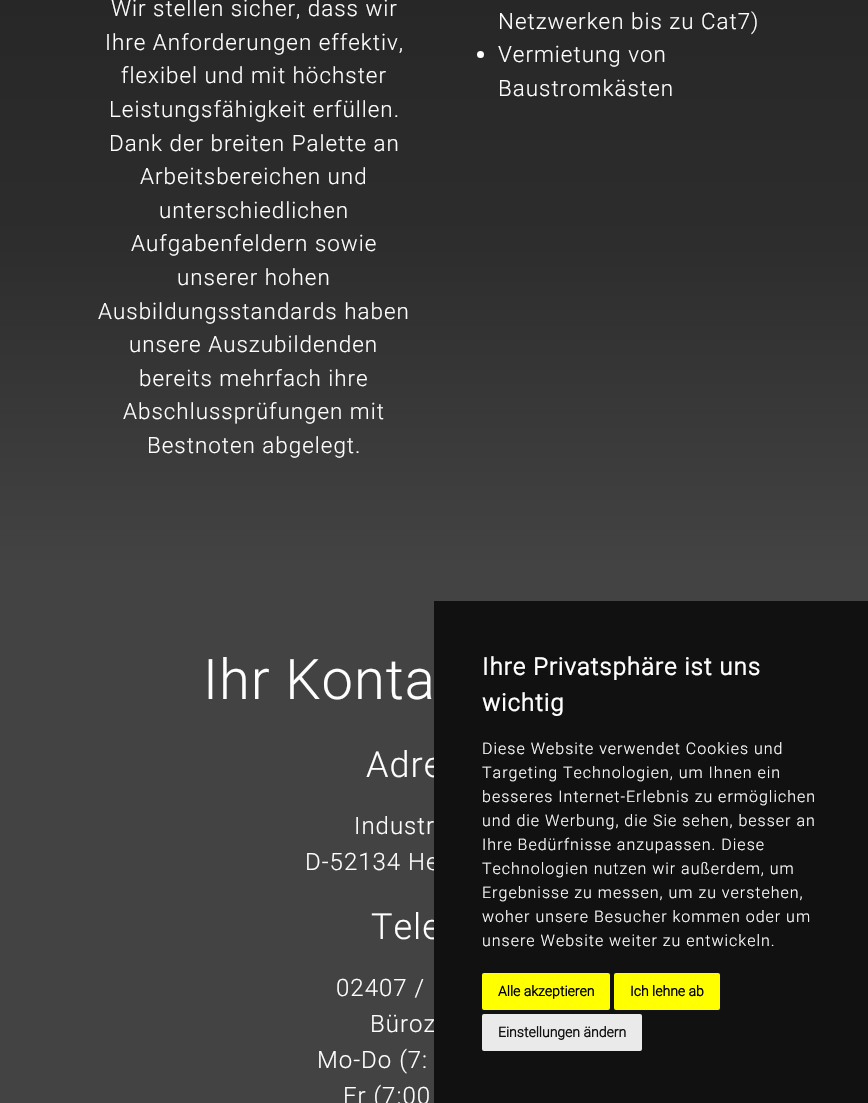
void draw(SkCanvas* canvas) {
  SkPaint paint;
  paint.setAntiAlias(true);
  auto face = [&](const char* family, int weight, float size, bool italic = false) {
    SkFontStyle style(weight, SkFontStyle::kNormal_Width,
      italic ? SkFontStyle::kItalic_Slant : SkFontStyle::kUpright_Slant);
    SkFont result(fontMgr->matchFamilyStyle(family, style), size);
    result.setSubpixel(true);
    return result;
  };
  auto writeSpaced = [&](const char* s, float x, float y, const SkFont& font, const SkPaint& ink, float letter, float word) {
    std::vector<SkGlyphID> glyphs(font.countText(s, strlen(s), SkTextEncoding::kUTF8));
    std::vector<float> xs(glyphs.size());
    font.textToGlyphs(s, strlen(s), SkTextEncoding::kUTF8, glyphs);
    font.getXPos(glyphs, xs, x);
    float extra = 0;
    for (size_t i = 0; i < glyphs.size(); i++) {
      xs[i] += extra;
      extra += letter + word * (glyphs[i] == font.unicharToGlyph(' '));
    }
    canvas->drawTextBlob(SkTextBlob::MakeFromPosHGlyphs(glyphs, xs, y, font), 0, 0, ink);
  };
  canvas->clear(0xffffffff);
  {
    const SkColor colors[] = {0xff161616, 0xff2d2d2d, 0xff434343};
    const float stops[] = {0, 0.75f, 1};
    const SkPoint ends[] = {{434, -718}, {434, 567}};
    paint.setShader(SkGradientShader::MakeLinear(ends, colors, stops, 3, SkTileMode::kClamp));
    paint.setAlpha(255);
  }
  canvas->drawRect(SkRect::MakeXYWH(0, 0, 868, 567), paint);
  paint.setShader(nullptr);
  paint.setColor(0xffffffff);
  canvas->drawCircle(480.5f, 54.5f, 3.5f, paint);
  paint.setColor(0xff434343);
  canvas->drawRect(SkRect::MakeXYWH(0, 567, 868, 536), paint);
  auto f0 = face("Roboto", 300, 22.4f);
  paint.setColor(0xffffffff);
  {
    const struct { const char* s; float x, y; } items[] = {
      {"Wir stellen sicher, dass wir", 111, 16},
      {"Ihre Anforderungen effektiv,", 105, 50},
      {"flexibel und mit höchster", 121, 83},
      {"Leistungsfähigkeit erfüllen.", 109, 117},
      {"Dank der breiten Palette an", 109, 151},
      {"Arbeitsbereichen und", 140, 184},
      {"unterschiedlichen", 159, 218},
      {"Aufgabenfeldern sowie", 131, 251},
      {"unserer hohen", 177, 285},
      {"Ausbildungsstandards haben", 98, 319},
      {"unsere Auszubildenden", 129, 352},
      {"bereits mehrfach ihre", 139, 386},
      {"Abschlussprüfungen mit", 123, 419},
      {"Bestnoten abgelegt.", 147, 453},
      {"Netzwerken bis zu Cat7)", 498, 29},
      {"Vermietung von", 498, 62},
      {"Baustromkästen", 498, 96},
    };
    for (auto [s, x, y] : items) {
      writeSpaced(s, x, y, f0, paint, 1, 0);
    }
  }
  auto f1 = face("Roboto", 300, 56);
  writeSpaced("Ihr Konta", 203, 699, f1, paint, 1, 0);
  auto f2 = face("Roboto", 300, 36);
  writeSpaced("Adre", 366, 777, f2, paint, 1, 0);
  auto f3 = face("Roboto", 300, 24);
  writeSpaced("Industr", 354, 834, f3, paint, 1, 0);
  writeSpaced("D-52134 He", 305, 870, f3, paint, 1, 0);
  writeSpaced("Tele", 371, 939, f2, paint, 1, 0);
  {
    const struct { const char* s; float x, y; } items[] = {
      {"02407 /", 336, 996},
      {"Büroz", 370, 1032},
      {"Mo-Do (7:", 317, 1068},
      {"Fr (7:00", 343, 1104},
    };
    for (auto [s, x, y] : items) {
      writeSpaced(s, x, y, f3, paint, 1, 0);
    }
  }
  paint.setColor(0xff111111);
  canvas->drawRect(SkRect::MakeXYWH(434, 601, 434, 502), paint);
  auto f4 = face("Roboto", 700, 24);
  paint.setColor(0xffffffff);
  writeSpaced("Ihre Privatsphäre ist uns", 482, 675, f4, paint, 1, 0);
  writeSpaced("wichtig", 482, 711, f4, paint, 1, 0);
  auto f5 = face("Roboto", 300, 16);
  {
    const struct { const char* s; float x, y; } items[] = {
      {"Diese Website verwendet Cookies und", 482, 754},
      {"Targeting Technologien, um Ihnen ein", 482, 778},
      {"besseres Internet-Erlebnis zu ermöglichen", 482, 802},
      {"und die Werbung, die Sie sehen, besser an", 482, 826},
      {"Ihre Bedürfnisse anzupassen. Diese", 482, 850},
      {"Technologien nutzen wir außerdem, um", 482, 874},
      {"Ergebnisse zu messen, um zu verstehen,", 482, 898},
      {"woher unsere Besucher kommen oder um", 482, 922},
      {"unsere Website weiter zu entwickeln.", 482, 946},
    };
    for (auto [s, x, y] : items) {
      writeSpaced(s, x, y, f5, paint, 1, 0);
    }
  }
  paint.setColor(0xffffff00);
  canvas->drawRoundRect(SkRect::MakeXYWH(482, 973, 128, 37), 2, 2, paint);
  auto f6 = face("Roboto", 700, 14);
  paint.setColor(0xff000000);
  canvas->drawString("Alle akzeptieren", 498, 996, f6, paint);
  paint.setColor(0xffffff00);
  canvas->drawRoundRect(SkRect::MakeXYWH(614, 973, 106, 37), 2, 2, paint);
  paint.setColor(0xff000000);
  canvas->drawString("Ich lehne ab", 630, 996, f6, paint);
  paint.setColor(0xffeaeaea);
  canvas->drawRoundRect(SkRect::MakeXYWH(482, 1014, 160, 37), 2, 2, paint);
  paint.setColor(0xff111111);
  canvas->drawString("Einstellungen ändern", 498, 1037, f6, paint);
}
